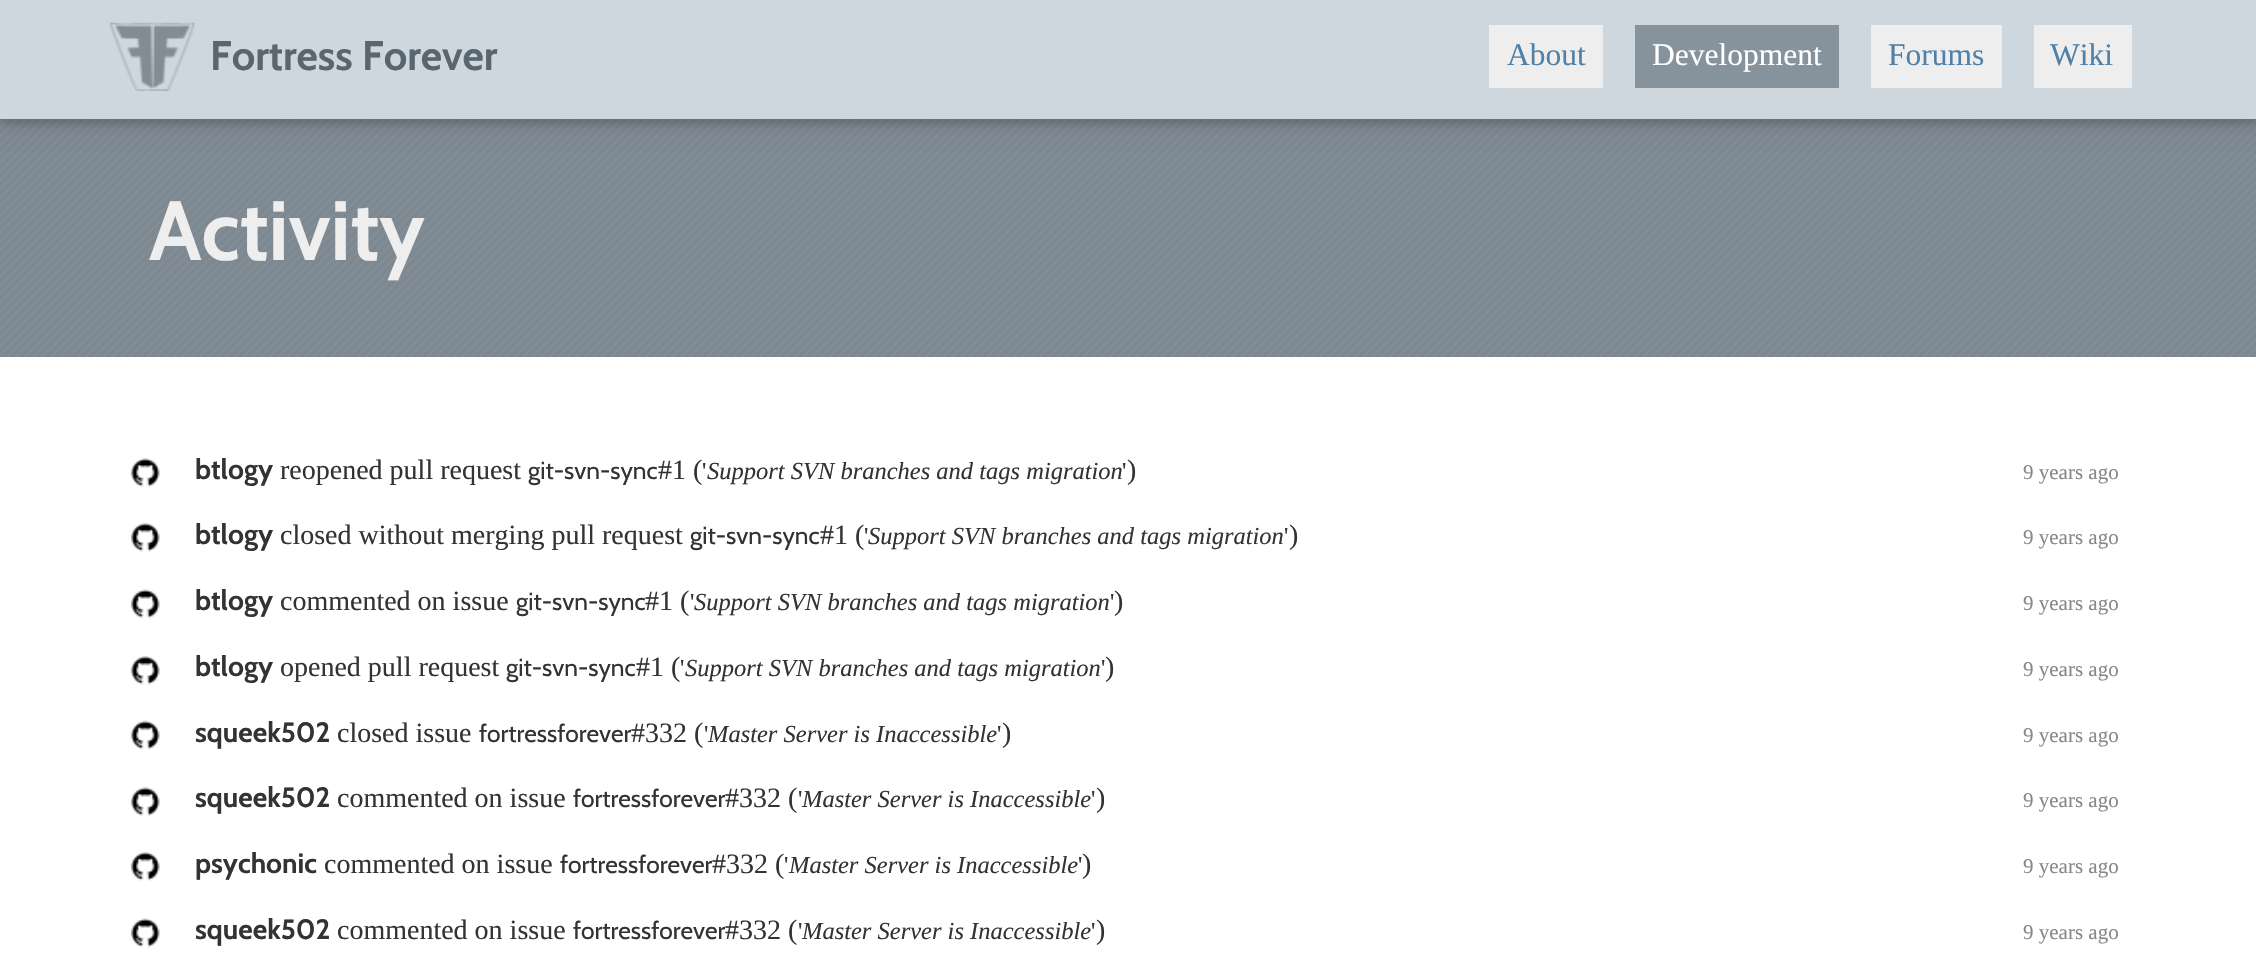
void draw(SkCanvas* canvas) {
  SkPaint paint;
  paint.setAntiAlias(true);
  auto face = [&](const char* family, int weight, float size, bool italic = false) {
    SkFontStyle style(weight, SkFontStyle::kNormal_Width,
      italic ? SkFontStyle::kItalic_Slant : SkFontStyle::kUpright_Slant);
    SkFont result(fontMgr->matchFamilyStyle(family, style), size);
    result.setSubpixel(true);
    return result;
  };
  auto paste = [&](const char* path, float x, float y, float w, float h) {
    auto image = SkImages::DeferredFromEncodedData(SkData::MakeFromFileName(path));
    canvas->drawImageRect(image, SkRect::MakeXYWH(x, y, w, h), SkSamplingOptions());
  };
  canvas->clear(0xffffffff);
  paste("img/2.png", 0, 119, 2256, 238);
  paint.setColor(0x1f000000);
  paint.setMaskFilter(SkMaskFilter::MakeBlur(kNormal_SkBlurStyle, 9));
  canvas->drawRect(SkRect::MakeXYWH(0, 4, 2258, 119), paint);
  paint.setMaskFilter(nullptr);
  paint.setColor(0x29000000);
  paint.setMaskFilter(SkMaskFilter::MakeBlur(kNormal_SkBlurStyle, 4.5f));
  canvas->drawRect(SkRect::MakeXYWH(0, 4, 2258, 119), paint);
  paint.setMaskFilter(nullptr);
  paint.setColor(0xffcdd7dd);
  canvas->drawRect(SkRect::MakeXYWH(0, 0, 2256, 119), paint);
  paste("img/1.png", 110, 22, 85, 69);
  {
    const struct { float x, y, w, h; SkColor color; } items[] = {
      {1489, 25, 114, 63, 0xffeeeeee},
      {1635, 25, 204, 63, 0xff86929c},
      {1871, 25, 131, 63, 0xffeeeeee},
      {2034, 25, 98, 63, 0xffeeeeee},
    };
    for (auto [x, y, w, h, color] : items) {
      paint.setColor(color);
      canvas->drawRect(SkRect::MakeXYWH(x, y, w, h), paint);
    }
  }
  paste("img/3.png", 130, 458, 30, 29);
  paste("img/4.png", 130, 523, 30, 29);
  paste("img/5.png", 130, 589, 30, 30);
  paste("img/4.png", 130, 656, 30, 29);
  paste("img/6.png", 130, 720, 30, 30);
  paste("img/3.png", 130, 787, 30, 29);
  paste("img/4.png", 130, 852, 30, 29);
  paste("img/5.png", 130, 918, 30, 30);
  auto f0 = face("Cabin", 700, 41.25f);
  paint.setColor(0xff59656f);
  canvas->drawString("Fortress Forever", 210, 70, f0, paint);
  auto f1 = face("Liberation Serif", 400, 31.5f);
  paint.setColor(0xff5080a8);
  canvas->drawString("About", 1507, 65, f1, paint);
  paint.setColor(0xffffffff);
  canvas->drawString("Development", 1652, 65, f1, paint);
  paint.setColor(0xff5080a8);
  canvas->drawString("Forums", 1888, 65, f1, paint);
  canvas->drawString("Wiki", 2050, 65, f1, paint);
  auto f2 = face("Cabin", 700, 84);
  paint.setColor(0xffeeeeee);
  canvas->drawString("Activity", 149, 260, f2, paint);
  auto f3 = face("Cabin", 700, 28);
  paint.setColor(0xff333333);
  canvas->drawString("btlogy", 195, 479, f3, paint);
  auto f4 = face("Liberation Serif", 400, 28);
  canvas->drawString("reopened pull request", 280, 479, f4, paint);
  auto f5 = face("Cabin", 400, 24.5f);
  canvas->drawString("git-svn-sync", 528, 479, f5, paint);
  canvas->drawString("#1 (", 658, 479, f4, paint);
  auto f6 = face("Liberation Serif", 400, 24.5f);
  canvas->drawString("'", 702, 479, f6, paint);
  auto f7 = face("Liberation Serif", 400, 24.5f, true);
  canvas->drawString("Support SVN branches and tags migration", 707, 479, f7, paint);
  canvas->drawString("'", 1122, 479, f6, paint);
  canvas->drawString(")", 1127, 479, f4, paint);
  auto f8 = face("Liberation Serif", 400, 21);
  paint.setColor(0xff888888);
  canvas->drawString("9 years ago", 2023, 479, f8, paint);
  paint.setColor(0xff333333);
  canvas->drawString("btlogy", 195, 544, f3, paint);
  canvas->drawString("closed without merging pull request", 280, 544, f4, paint);
  canvas->drawString("git-svn-sync", 690, 544, f5, paint);
  canvas->drawString("#1 (", 820, 544, f4, paint);
  canvas->drawString("'", 864, 544, f6, paint);
  canvas->drawString("Support SVN branches and tags migration", 868, 544, f7, paint);
  canvas->drawString("'", 1284, 544, f6, paint);
  canvas->drawString(")", 1289, 544, f4, paint);
  paint.setColor(0xff888888);
  canvas->drawString("9 years ago", 2023, 544, f8, paint);
  paint.setColor(0xff333333);
  canvas->drawString("btlogy", 195, 610, f3, paint);
  canvas->drawString("commented on issue", 280, 610, f4, paint);
  canvas->drawString("git-svn-sync", 516, 610, f5, paint);
  canvas->drawString("#1 (", 645, 610, f4, paint);
  canvas->drawString("'", 690, 610, f6, paint);
  canvas->drawString("Support SVN branches and tags migration", 694, 610, f7, paint);
  canvas->drawString("'", 1110, 610, f6, paint);
  canvas->drawString(")", 1114, 610, f4, paint);
  paint.setColor(0xff888888);
  canvas->drawString("9 years ago", 2023, 610, f8, paint);
  paint.setColor(0xff333333);
  canvas->drawString("btlogy", 195, 676, f3, paint);
  canvas->drawString("opened pull request", 280, 676, f4, paint);
  canvas->drawString("git-svn-sync", 506, 676, f5, paint);
  canvas->drawString("#1 (", 636, 676, f4, paint);
  canvas->drawString("'", 680, 676, f6, paint);
  canvas->drawString("Support SVN branches and tags migration", 685, 676, f7, paint);
  canvas->drawString("'", 1101, 676, f6, paint);
  canvas->drawString(")", 1105, 676, f4, paint);
  paint.setColor(0xff888888);
  canvas->drawString("9 years ago", 2023, 676, f8, paint);
  paint.setColor(0xff333333);
  canvas->drawString("squeek502", 195, 742, f3, paint);
  canvas->drawString("closed issue", 337, 742, f4, paint);
  canvas->drawString("fortressforever", 479, 742, f5, paint);
  canvas->drawString("#332 (", 631, 742, f4, paint);
  canvas->drawString("'", 704, 742, f6, paint);
  canvas->drawString("Master Server is Inaccessible", 708, 742, f7, paint);
  canvas->drawString("'", 997, 742, f6, paint);
  canvas->drawString(")", 1002, 742, f4, paint);
  paint.setColor(0xff888888);
  canvas->drawString("9 years ago", 2023, 742, f8, paint);
  paint.setColor(0xff333333);
  canvas->drawString("squeek502", 195, 807, f3, paint);
  canvas->drawString("commented on issue", 337, 807, f4, paint);
  canvas->drawString("fortressforever", 573, 807, f5, paint);
  canvas->drawString("#332 (", 725, 807, f4, paint);
  canvas->drawString("'", 798, 807, f6, paint);
  canvas->drawString("Master Server is Inaccessible", 802, 807, f7, paint);
  canvas->drawString("'", 1091, 807, f6, paint);
  canvas->drawString(")", 1096, 807, f4, paint);
  paint.setColor(0xff888888);
  canvas->drawString("9 years ago", 2023, 807, f8, paint);
  paint.setColor(0xff333333);
  canvas->drawString("psychonic", 195, 873, f3, paint);
  canvas->drawString("commented on issue", 324, 873, f4, paint);
  canvas->drawString("fortressforever", 560, 873, f5, paint);
  canvas->drawString("#332 (", 712, 873, f4, paint);
  canvas->drawString("'", 784, 873, f6, paint);
  canvas->drawString("Master Server is Inaccessible", 789, 873, f7, paint);
  canvas->drawString("'", 1078, 873, f6, paint);
  canvas->drawString(")", 1082, 873, f4, paint);
  paint.setColor(0xff888888);
  canvas->drawString("9 years ago", 2023, 873, f8, paint);
  paint.setColor(0xff333333);
  canvas->drawString("squeek502", 195, 939, f3, paint);
  canvas->drawString("commented on issue", 337, 939, f4, paint);
  canvas->drawString("fortressforever", 573, 939, f5, paint);
  canvas->drawString("#332 (", 725, 939, f4, paint);
  canvas->drawString("'", 798, 939, f6, paint);
  canvas->drawString("Master Server is Inaccessible", 802, 939, f7, paint);
  canvas->drawString("'", 1091, 939, f6, paint);
  canvas->drawString(")", 1096, 939, f4, paint);
  paint.setColor(0xff888888);
  canvas->drawString("9 years ago", 2023, 939, f8, paint);
}
